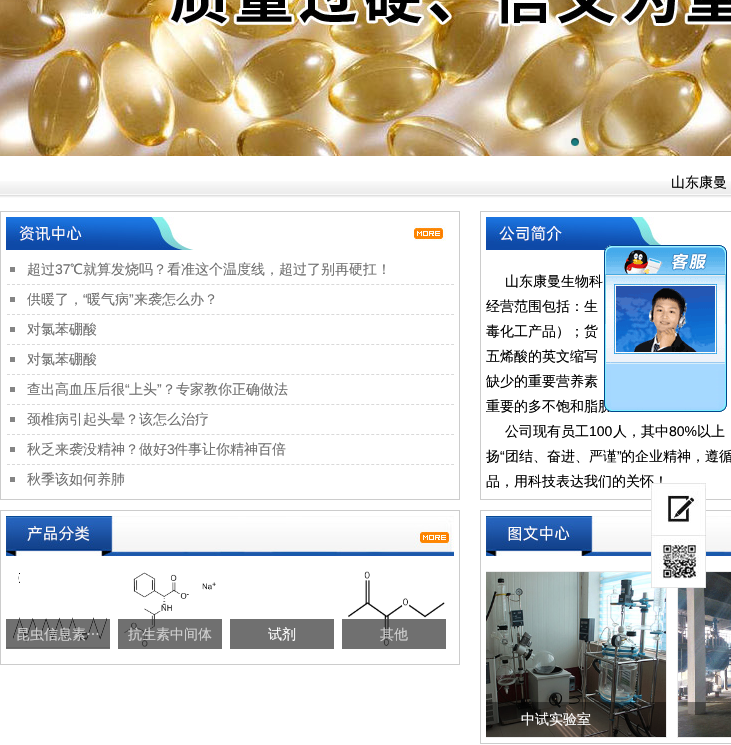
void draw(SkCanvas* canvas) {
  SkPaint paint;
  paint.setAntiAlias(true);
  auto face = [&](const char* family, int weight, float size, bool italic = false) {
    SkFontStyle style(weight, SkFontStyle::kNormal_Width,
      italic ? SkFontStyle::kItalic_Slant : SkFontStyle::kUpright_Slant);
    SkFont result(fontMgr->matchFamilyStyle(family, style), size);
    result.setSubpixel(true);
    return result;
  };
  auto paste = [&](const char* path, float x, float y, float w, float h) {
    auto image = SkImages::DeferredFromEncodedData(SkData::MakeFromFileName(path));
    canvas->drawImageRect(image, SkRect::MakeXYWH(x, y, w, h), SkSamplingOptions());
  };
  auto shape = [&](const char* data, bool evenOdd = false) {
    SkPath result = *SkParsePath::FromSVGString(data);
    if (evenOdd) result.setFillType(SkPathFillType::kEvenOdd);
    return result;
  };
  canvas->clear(0xffffffff);
  paste("img/1.png", 0, 0, 731, 156);
  paste("img/2.png", 571, 138, 8, 8);
  paste("img/3.png", 0, 181, 731, 17);
  paint.setStroke(true);
  paint.setStrokeWidth(1);
  paint.setColor(0xffcccccc);
  canvas->drawRect(SkRect::MakeXYWH(480.5f, 211.5f, 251, 288), paint);
  paste("img/8.png", 486, 217, 187, 33);
  paste("img/4.png", 604, 245, 123, 125);
  canvas->drawRect(SkRect::MakeXYWH(0.5f, 211.5f, 459, 288), paint);
  paste("img/7.png", 6, 217, 440, 33);
  paint.setStroke(false);
  paint.setColor(0xff858585);
  canvas->drawRect(SkRect::MakeXYWH(10, 267, 5, 5), paint);
  paint.setStroke(true);
  paint.setColor(0xffd9d9d9);
  paint.setPathEffect(SkDashPathEffect::Make({{3, 1.99f}}, 0));
  canvas->drawPath(shape("M7 284.5H454"), paint);
  paint.setPathEffect(nullptr);
  paint.setStroke(false);
  paint.setColor(0xff858585);
  canvas->drawRect(SkRect::MakeXYWH(10, 297, 5, 5), paint);
  paint.setStroke(true);
  paint.setColor(0xffd9d9d9);
  paint.setPathEffect(SkDashPathEffect::Make({{3, 1.99f}}, 0));
  canvas->drawPath(shape("M7 314.5H454"), paint);
  paint.setPathEffect(nullptr);
  paint.setStroke(false);
  paint.setColor(0xff858585);
  canvas->drawRect(SkRect::MakeXYWH(10, 327, 5, 5), paint);
  paint.setStroke(true);
  paint.setColor(0xffd9d9d9);
  paint.setPathEffect(SkDashPathEffect::Make({{3, 1.99f}}, 0));
  canvas->drawPath(shape("M7 344.5H454"), paint);
  paint.setPathEffect(nullptr);
  paint.setStroke(false);
  paint.setColor(0xff858585);
  canvas->drawRect(SkRect::MakeXYWH(10, 357, 5, 5), paint);
  paint.setStroke(true);
  paint.setColor(0xffd9d9d9);
  paint.setPathEffect(SkDashPathEffect::Make({{3, 1.99f}}, 0));
  canvas->drawPath(shape("M7 374.5H454"), paint);
  paint.setPathEffect(nullptr);
  paint.setStroke(false);
  paint.setColor(0xff858585);
  canvas->drawRect(SkRect::MakeXYWH(10, 387, 5, 5), paint);
  paint.setStroke(true);
  paint.setColor(0xffd9d9d9);
  paint.setPathEffect(SkDashPathEffect::Make({{3, 1.99f}}, 0));
  canvas->drawPath(shape("M7 404.5H454"), paint);
  paint.setPathEffect(nullptr);
  paint.setStroke(false);
  paint.setColor(0xff858585);
  canvas->drawRect(SkRect::MakeXYWH(10, 417, 5, 5), paint);
  paint.setStroke(true);
  paint.setColor(0xffd9d9d9);
  paint.setPathEffect(SkDashPathEffect::Make({{3, 1.99f}}, 0));
  canvas->drawPath(shape("M7 434.5H454"), paint);
  paint.setPathEffect(nullptr);
  paint.setStroke(false);
  paint.setColor(0xff858585);
  canvas->drawRect(SkRect::MakeXYWH(10, 447, 5, 5), paint);
  paint.setStroke(true);
  paint.setColor(0xffd9d9d9);
  paint.setPathEffect(SkDashPathEffect::Make({{3, 1.99f}}, 0));
  canvas->drawPath(shape("M7 464.5H454"), paint);
  paint.setPathEffect(nullptr);
  paint.setStroke(false);
  paint.setColor(0xff858585);
  canvas->drawRect(SkRect::MakeXYWH(10, 477, 5, 5), paint);
  paint.setStroke(true);
  paint.setColor(0xffcccccc);
  canvas->drawRect(SkRect::MakeXYWH(480.5f, 510.5f, 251, 233), paint);
  paste("img/15.png", 486, 516, 245, 40);
  canvas->drawRect(SkRect::MakeXYWH(0.5f, 510.5f, 459, 154), paint);
  paste("img/14.png", 348, 571, 97, 75);
  paint.setStroke(false);
  paint.setColor(0xb3333333);
  canvas->drawRect(SkRect::MakeXYWH(342, 619, 104, 30), paint);
  canvas->save();
  canvas->clipRect(SkRect::MakeXYWH(486, 571, 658, 167));
  paint.setStroke(true);
  paint.setColor(0xffebebeb);
  canvas->drawRect(SkRect::MakeXYWH(445.5f, 571.5f, 221, 166), paint);
  canvas->restore();
  paste("img/16.png", 486, 572, 180, 165);
  canvas->drawRect(SkRect::MakeXYWH(677.5f, 571.5f, 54, 166), paint);
  paste("img/17.png", 678, 572, 53, 165);
  paste("img/10.png", 651, 536, 55, 52);
  paste("img/11.png", 6, 516, 448, 40);
  paste("img/12.png", 6, 573, 104, 75);
  paint.setStroke(false);
  paint.setColor(0xb3333333);
  canvas->drawRect(SkRect::MakeXYWH(6, 619, 104, 30), paint);
  paste("img/13.png", 124, 572, 92, 75);
  {
    const struct { float x, y, w, h; SkColor color; } items[] = {
      {118, 619, 104, 30, 0xb3333333},
      {230, 619, 104, 30, 0xff707070},
      {486, 702, 180, 35, 0x66000000},
      {678, 702, 53, 35, 0x66000000},
    };
    for (auto [x, y, w, h, color] : items) {
      paint.setColor(color);
      canvas->drawRect(SkRect::MakeXYWH(x, y, w, h), paint);
    }
  }
  auto f0 = face("WenQuanYi Zen Hei", 500, 14);
  paint.setColor(0xff000000);
  canvas->drawString("山东康曼", 671, 187, f0, paint);
  paint.setColor(0xff707070);
  canvas->drawString("超过", 27, 274, f0, paint);
  auto f1 = face("Liberation Sans", 400, 14);
  canvas->drawString("37", 55, 274, f1, paint);
  canvas->drawString("℃就算发烧吗？看准这个温度线，超过了别再硬扛！", 70, 274, f0, paint);
  canvas->drawString("供暖了，", 27, 304, f0, paint);
  canvas->drawString("“", 83, 304, f1, paint);
  canvas->drawString("暖气病", 87, 304, f0, paint);
  canvas->drawString("”", 129, 304, f1, paint);
  {
    const struct { const char* s; float x, y; } items[] = {
      {"来袭怎么办？", 134, 304},
      {"对氯苯硼酸", 27, 334},
      {"对氯苯硼酸", 27, 364},
      {"查出高血压后很", 27, 394},
    };
    for (auto [s, x, y] : items) {
      canvas->drawString(s, x, y, f0, paint);
    }
  }
  canvas->drawString("“", 125, 394, f1, paint);
  canvas->drawString("上头", 129, 394, f0, paint);
  canvas->drawString("”", 157, 394, f1, paint);
  {
    const struct { const char* s; float x, y; } items[] = {
      {"？专家教你正确做法", 162, 394},
      {"颈椎病引起头晕？该怎么治疗", 27, 424},
      {"秋乏来袭没精神？做好", 27, 454},
    };
    for (auto [s, x, y] : items) {
      canvas->drawString(s, x, y, f0, paint);
    }
  }
  canvas->drawString("3", 167, 454, f1, paint);
  canvas->drawString("件事让你精神百倍", 174, 454, f0, paint);
  canvas->drawString("秋季该如何养肺", 27, 484, f0, paint);
  paint.setColor(0xff000000);
  {
    const struct { const char* s; float x, y; } items[] = {
      {"山东康曼生物科", 505, 286},
      {"经营范围包括：生", 486, 311},
      {"毒化工产品）；货", 486, 336},
      {"五烯酸的英文缩写", 486, 361},
      {"缺少的重要营养素", 486, 386},
      {"重要的多不饱和脂肪", 486, 411},
    };
    for (auto [s, x, y] : items) {
      canvas->drawString(s, x, y, f0, paint);
    }
  }
  paste("img/6.png", 604, 400, 123, 12);
  paste("img/5.png", 604, 370, 123, 30);
  canvas->drawString("公司现有员工", 505, 436, f0, paint);
  canvas->drawString("100", 589, 436, f1, paint);
  canvas->drawString("人，其中", 613, 436, f0, paint);
  canvas->drawString("80%", 669, 436, f1, paint);
  canvas->drawString("以上", 697, 436, f0, paint);
  canvas->drawString("扬", 486, 461, f0, paint);
  canvas->drawString("“", 500, 461, f1, paint);
  canvas->drawString("团结、奋进、严谨", 505, 461, f0, paint);
  canvas->drawString("”", 617, 461, f1, paint);
  canvas->drawString("的企业精神，遵循", 621, 461, f0, paint);
  canvas->drawString("品，用科技表达我们的关怀！", 486, 486, f0, paint);
  paste("img/9.png", 651, 483, 55, 53);
  paint.setColor(0xffd1d1d1);
  canvas->drawString("昆虫信息素…", 16, 639, f0, paint);
  canvas->drawString("抗生素中间体", 128, 639, f0, paint);
  paint.setColor(0xffffffff);
  canvas->drawString("试剂", 268, 639, f0, paint);
  paint.setColor(0xffd1d1d1);
  canvas->drawString("其他", 380, 639, f0, paint);
  paint.setColor(0xffffffff);
  canvas->drawString("中试实验室", 521, 724, f0, paint);
}
